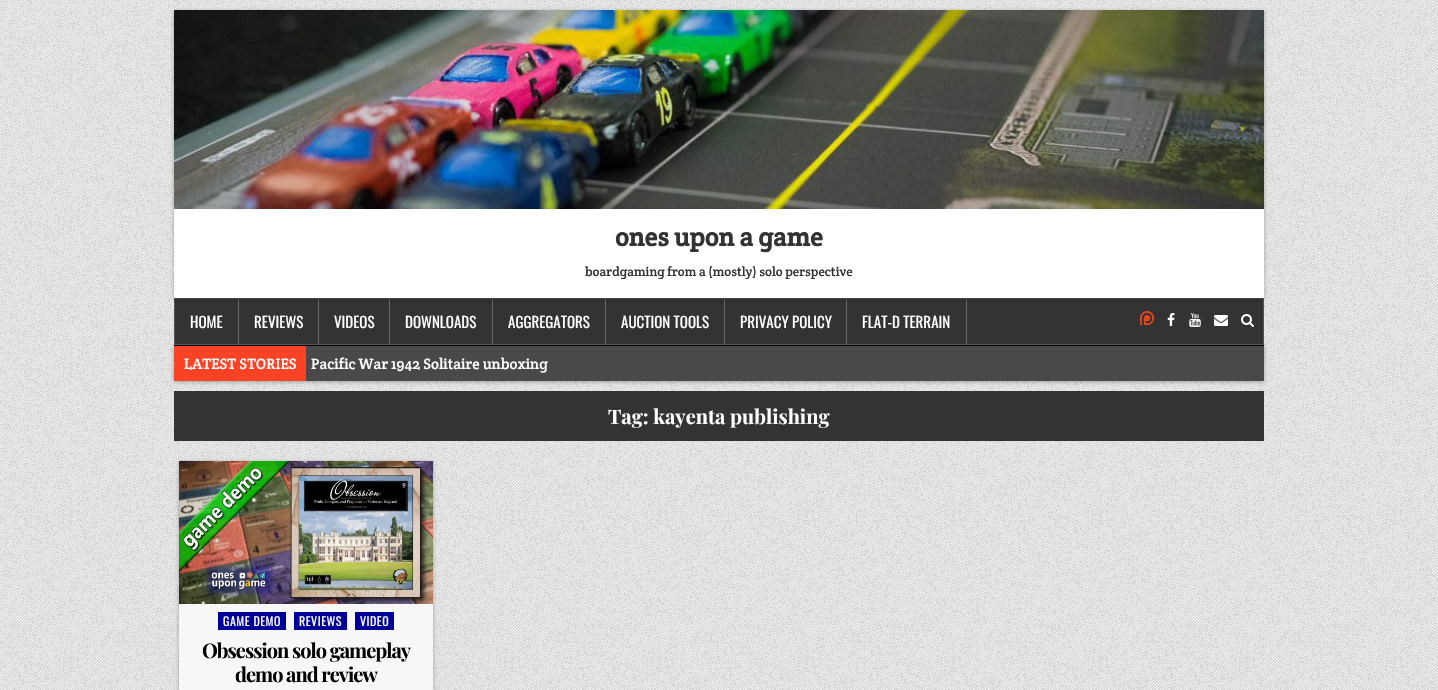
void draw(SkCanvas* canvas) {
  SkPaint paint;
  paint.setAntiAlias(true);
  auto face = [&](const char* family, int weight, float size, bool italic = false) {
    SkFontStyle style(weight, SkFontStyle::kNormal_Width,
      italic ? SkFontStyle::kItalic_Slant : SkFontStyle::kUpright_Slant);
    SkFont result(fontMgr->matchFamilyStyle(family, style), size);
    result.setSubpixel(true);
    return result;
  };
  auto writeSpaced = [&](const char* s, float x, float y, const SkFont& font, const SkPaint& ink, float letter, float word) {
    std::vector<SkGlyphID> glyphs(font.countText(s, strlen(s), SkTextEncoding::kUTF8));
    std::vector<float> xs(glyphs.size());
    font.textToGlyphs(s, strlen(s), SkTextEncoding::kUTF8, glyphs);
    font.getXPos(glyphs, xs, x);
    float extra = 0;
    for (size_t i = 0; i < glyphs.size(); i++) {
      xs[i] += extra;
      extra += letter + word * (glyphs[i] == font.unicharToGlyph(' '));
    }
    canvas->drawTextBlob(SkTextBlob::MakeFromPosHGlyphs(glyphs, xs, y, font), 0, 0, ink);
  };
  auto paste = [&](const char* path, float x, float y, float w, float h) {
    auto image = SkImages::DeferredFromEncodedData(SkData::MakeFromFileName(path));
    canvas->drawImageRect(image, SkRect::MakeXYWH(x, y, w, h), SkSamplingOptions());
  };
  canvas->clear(0xffffffff);
  paste("img/1.png", 0, 0, 1438, 690);
  paint.setColor(0x4d000000);
  paint.setMaskFilter(SkMaskFilter::MakeBlur(kNormal_SkBlurStyle, 2));
  canvas->drawRect(SkRect::MakeXYWH(174, 346, 1090, 36), paint);
  paint.setMaskFilter(nullptr);
  paint.setColor(0xff333333);
  canvas->drawRect(SkRect::MakeXYWH(174.5f, 298.5f, 1089, 46), paint);
  paint.setStroke(true);
  paint.setStrokeWidth(1);
  paint.setColor(0xff555555);
  canvas->drawRect(SkRect::MakeXYWH(174.5f, 298.5f, 1089, 46), paint);
  paint.setStroke(false);
  {
    const struct { float x, y, w, h; SkColor color; } items[] = {
      {238, 299, 1, 45, 0xff666666},
      {318, 299, 1, 45, 0xff666666},
      {389, 299, 1, 45, 0xff666666},
      {492, 299, 1, 45, 0xff666666},
      {605, 299, 1, 45, 0xff666666},
      {724, 299, 1, 45, 0xff666666},
      {846, 299, 1, 45, 0xff666666},
      {966, 299, 1, 45, 0xff666666},
    };
    for (auto [x, y, w, h, color] : items) {
      paint.setColor(color);
      canvas->drawRect(SkRect::MakeXYWH(x, y, w, h), paint);
    }
  }
  paint.setColor(0x4d000000);
  paint.setMaskFilter(SkMaskFilter::MakeBlur(kNormal_SkBlurStyle, 2));
  canvas->drawRect(SkRect::MakeXYWH(174, 11, 1090, 288), paint);
  paint.setMaskFilter(nullptr);
  paint.setColor(0xffffffff);
  canvas->drawRect(SkRect::MakeXYWH(174, 209, 1090, 89), paint);
  paste("img/2.png", 174, 10, 1090, 199);
  paste("img/3.png", 1140, 311, 14, 14);
  paste("img/4.png", 1167, 313, 8, 13);
  paste("img/5.png", 1189, 313, 12, 14);
  paste("img/6.png", 1214, 315, 14, 11);
  paste("img/7.png", 1241, 314, 13, 13);
  {
    const struct { float x, y, w, h; SkColor color; } items[] = {
      {306, 346, 958, 35, 0xff4a4848},
      {174, 345, 1090, 1, 0xff040404},
      {174, 346, 132, 35, 0xfffd4326},
      {174, 391, 1090, 50, 0xff333333},
    };
    for (auto [x, y, w, h, color] : items) {
      paint.setColor(color);
      canvas->drawRect(SkRect::MakeXYWH(x, y, w, h), paint);
    }
  }
  paint.setColor(0x4d000000);
  paint.setMaskFilter(SkMaskFilter::MakeBlur(kNormal_SkBlurStyle, 2));
  canvas->drawRect(SkRect::MakeXYWH(179, 462, 254, 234), paint);
  paint.setMaskFilter(nullptr);
  paint.setColor(0xfff7f7f7);
  canvas->drawRect(SkRect::MakeXYWH(179, 604, 254, 86), paint);
  paste("img/8.png", 179, 461, 254, 143);
  {
    const struct { float x, y, w, h; SkColor color; } items[] = {
      {218, 612, 68, 18, 0xff000099},
      {294, 612, 53, 18, 0xff000099},
      {355, 612, 39, 18, 0xff000099},
    };
    for (auto [x, y, w, h, color] : items) {
      paint.setColor(color);
      canvas->drawRect(SkRect::MakeXYWH(x, y, w, h), paint);
    }
  }
  auto f0 = face("Crete Round", 700, 26);
  paint.setColor(0xff333333);
  canvas->drawString("ones upon a game", 615, 246, f0, paint);
  auto f1 = face("Crete Round", 400, 13);
  canvas->drawString("boardgaming from a (mostly) solo perspective", 585, 276, f1, paint);
  auto f2 = face("Oswald", 400, 15);
  paint.setColor(0xffffffff);
  {
    const struct { const char* s; float x, y; } items[] = {
      {"HOME", 190, 328},
      {"REVIEWS", 254, 328},
      {"VIDEOS", 334, 328},
      {"DOWNLOADS", 405, 328},
      {"AGGREGATORS", 508, 328},
      {"AUCTION TOOLS", 621, 328},
      {"PRIVACY POLICY", 740, 328},
      {"FLAT-D TERRAIN", 862, 328},
    };
    for (auto [s, x, y] : items) {
      canvas->drawString(s, x, y, f2, paint);
    }
  }
  auto f3 = face("Crete Round", 400, 15);
  canvas->drawString("LATEST STORIES", 184, 369, f3, paint);
  canvas->drawString("Pacific War 1942 Solitaire unboxing", 311, 369, f3, paint);
  auto f4 = face("Playfair Display", 700, 20);
  canvas->drawString("Tag: kayenta publishing", 608, 424, f4, paint);
  auto f5 = face("Oswald", 400, 12);
  {
    const struct { const char* s; float x, y; } items[] = {
      {"GAME DEMO", 223, 626},
      {"REVIEWS", 299, 626},
      {"VIDEO", 360, 626},
    };
    for (auto [s, x, y] : items) {
      writeSpaced(s, x, y, f5, paint, 0.5f, 0);
    }
  }
  paint.setColor(0xff000000);
  writeSpaced("Obsession solo gameplay", 202, 658, f4, paint, -1, 0);
  writeSpaced("demo and review", 235, 682, f4, paint, -1, 0);
}
